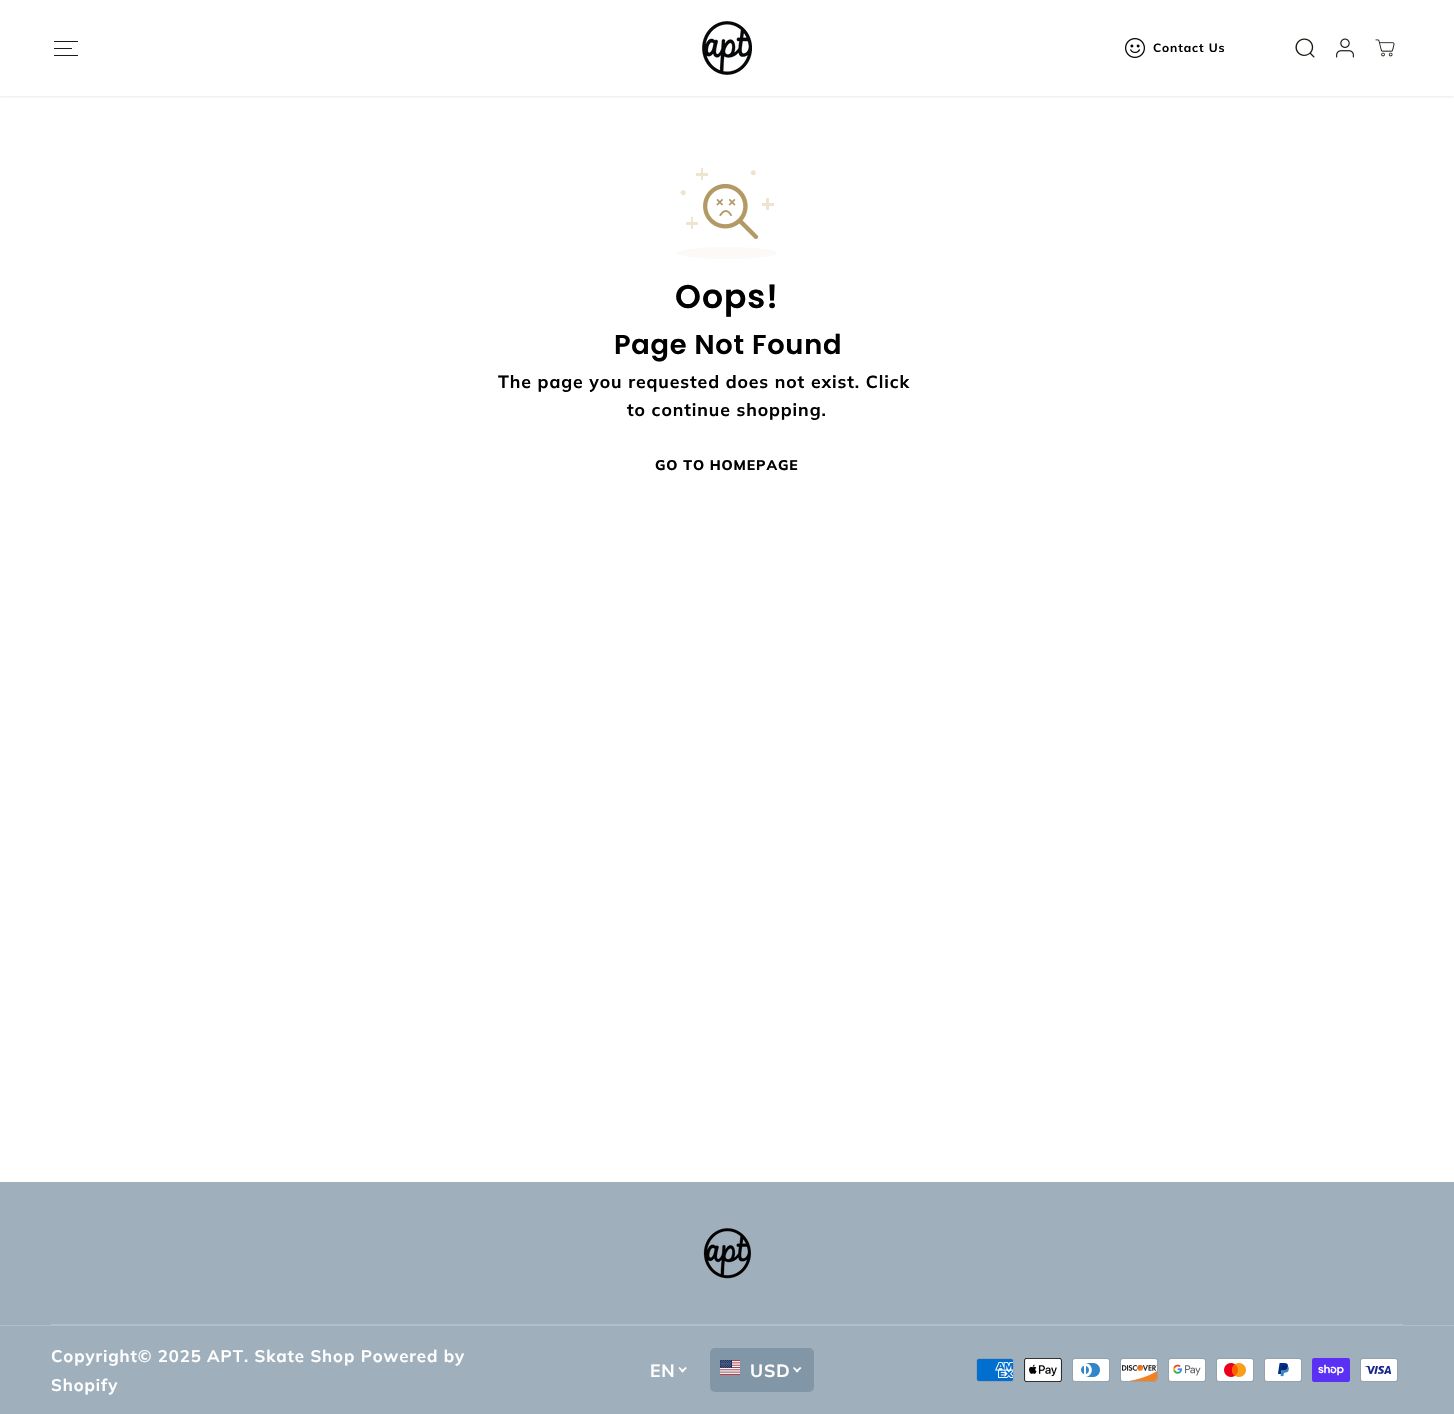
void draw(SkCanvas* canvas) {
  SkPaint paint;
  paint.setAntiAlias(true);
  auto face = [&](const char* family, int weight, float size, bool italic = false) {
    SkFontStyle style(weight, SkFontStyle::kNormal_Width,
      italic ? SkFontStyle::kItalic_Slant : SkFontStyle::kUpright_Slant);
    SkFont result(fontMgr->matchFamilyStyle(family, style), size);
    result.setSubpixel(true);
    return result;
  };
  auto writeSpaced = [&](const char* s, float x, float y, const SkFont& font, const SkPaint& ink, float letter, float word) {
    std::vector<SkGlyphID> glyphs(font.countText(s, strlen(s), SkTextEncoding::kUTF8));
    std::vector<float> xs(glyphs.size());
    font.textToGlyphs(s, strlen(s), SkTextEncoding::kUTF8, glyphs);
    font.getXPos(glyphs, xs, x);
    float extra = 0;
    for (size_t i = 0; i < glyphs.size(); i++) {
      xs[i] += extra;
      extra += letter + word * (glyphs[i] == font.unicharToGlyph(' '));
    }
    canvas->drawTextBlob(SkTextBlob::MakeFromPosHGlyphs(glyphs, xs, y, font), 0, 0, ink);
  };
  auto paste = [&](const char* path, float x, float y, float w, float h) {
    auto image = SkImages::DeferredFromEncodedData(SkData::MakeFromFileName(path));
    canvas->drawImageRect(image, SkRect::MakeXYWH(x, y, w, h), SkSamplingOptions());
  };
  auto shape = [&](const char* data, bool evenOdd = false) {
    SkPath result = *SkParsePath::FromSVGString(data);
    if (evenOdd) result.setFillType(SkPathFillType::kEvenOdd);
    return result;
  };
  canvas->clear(0xffffffff);
  canvas->save();
  canvas->clipRect(SkRect::MakeXYWH(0, 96, 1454, 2));
  paint.setColor(0x0d000000);
  paint.setMaskFilter(SkMaskFilter::MakeBlur(kNormal_SkBlurStyle, 1));
  canvas->drawRect(SkRect::MakeXYWH(0, 2, 1454, 96), paint);
  paint.setMaskFilter(nullptr);
  canvas->restore();
  {
    const struct { float x, y, w, h; SkColor color; } items[] = {
      {54, 41, 24, 1, 0xff1d1a13},
      {54, 48, 18, 1, 0xff1d1a13},
      {54, 55, 24, 1, 0xff1d1a13},
    };
    for (auto [x, y, w, h, color] : items) {
      paint.setColor(color);
      canvas->drawRect(SkRect::MakeXYWH(x, y, w, h), paint);
    }
  }
  paste("img/1.png", 702, 21, 50, 54);
  paste("img/2.png", 1125, 38, 20, 20);
  paste("img/3.png", 1295, 38, 20, 20);
  paste("img/4.png", 1336, 38, 18, 20);
  paste("img/5.png", 1375, 39, 20, 18);
  paste("img/6.png", 677, 168, 100, 91);
  paint.setColor(0xff9fafbc);
  canvas->drawRect(SkRect::MakeXYWH(0, 1182, 1454, 232), paint);
  paint.setColor(0xffb2bfc9);
  canvas->drawRect(SkRect::MakeXYWH(51, 1324, 1352, 1), paint);
  paste("img/7.png", 703, 1228, 48, 51);
  canvas->drawRect(SkRect::MakeXYWH(0, 1325, 1454, 1), paint);
  paint.setColor(0xffffffff);
  canvas->drawPath(shape("M685.5 1367L687 1368L682.5 1372.5L681 1371Z"), paint);
  canvas->drawPath(shape("M679.5 1367L684 1371L682.5 1372.5L678.5 1368Z"), paint);
  paint.setColor(0xff8196a7);
  canvas->drawRoundRect(SkRect::MakeXYWH(710, 1348, 104, 44), 5, 5, paint);
  paste("img/8.png", 720, 1360, 20, 15);
  paint.setColor(0xffffffff);
  canvas->drawPath(shape("M800 1367L801.5 1368L797 1372.5L795.5 1371Z"), paint);
  canvas->drawPath(shape("M794 1367L798.5 1371L797 1372.5L793 1368Z"), paint);
  paste("img/9.png", 976, 1358, 38, 24);
  paste("img/10.png", 1024, 1358, 38, 24);
  paste("img/11.png", 1072, 1358, 38, 24);
  paste("img/12.png", 1120, 1358, 38, 24);
  paste("img/13.png", 1168, 1358, 38, 24);
  paste("img/14.png", 1216, 1358, 38, 24);
  paste("img/15.png", 1264, 1358, 38, 24);
  paste("img/16.png", 1312, 1358, 38, 24);
  paste("img/17.png", 1360, 1358, 38, 24);
  auto f0 = face("Muli", 700, 12);
  paint.setColor(0xff000000);
  writeSpaced("Contact Us", 1153, 52, f0, paint, 0.9f, 0);
  auto f1 = face("Poppins", 600, 33);
  writeSpaced("Oops!", 675, 308, f1, paint, 1, 0);
  auto f2 = face("Poppins", 600, 27.25f);
  writeSpaced("Page Not Found", 614, 354, f2, paint, 0.75f, 0);
  auto f3 = face("Muli", 700, 17.6f);
  writeSpaced("The page you requested does not exist. Click", 498, 388, f3, paint, 0.9f, 0);
  writeSpaced("to continue shopping.", 627, 416, f3, paint, 0.9f, 0);
  auto f4 = face("Muli", 800, 14);
  writeSpaced("GO TO HOMEPAGE", 655, 470, f4, paint, 0.9f, 0);
  auto f5 = face("Muli", 700, 16.75f);
  paint.setColor(0xffffffff);
  writeSpaced("Copyright© 2025 APT. Skate Shop Powered by", 51, 1362, f5, paint, 0.9f, 0);
  writeSpaced("Shopify", 51, 1391, f5, paint, 0.9f, 0);
  writeSpaced("EN", 650, 1377, f3, paint, 0.9f, 0);
  writeSpaced("USD", 750, 1377, f3, paint, 0.9f, 0);
}
